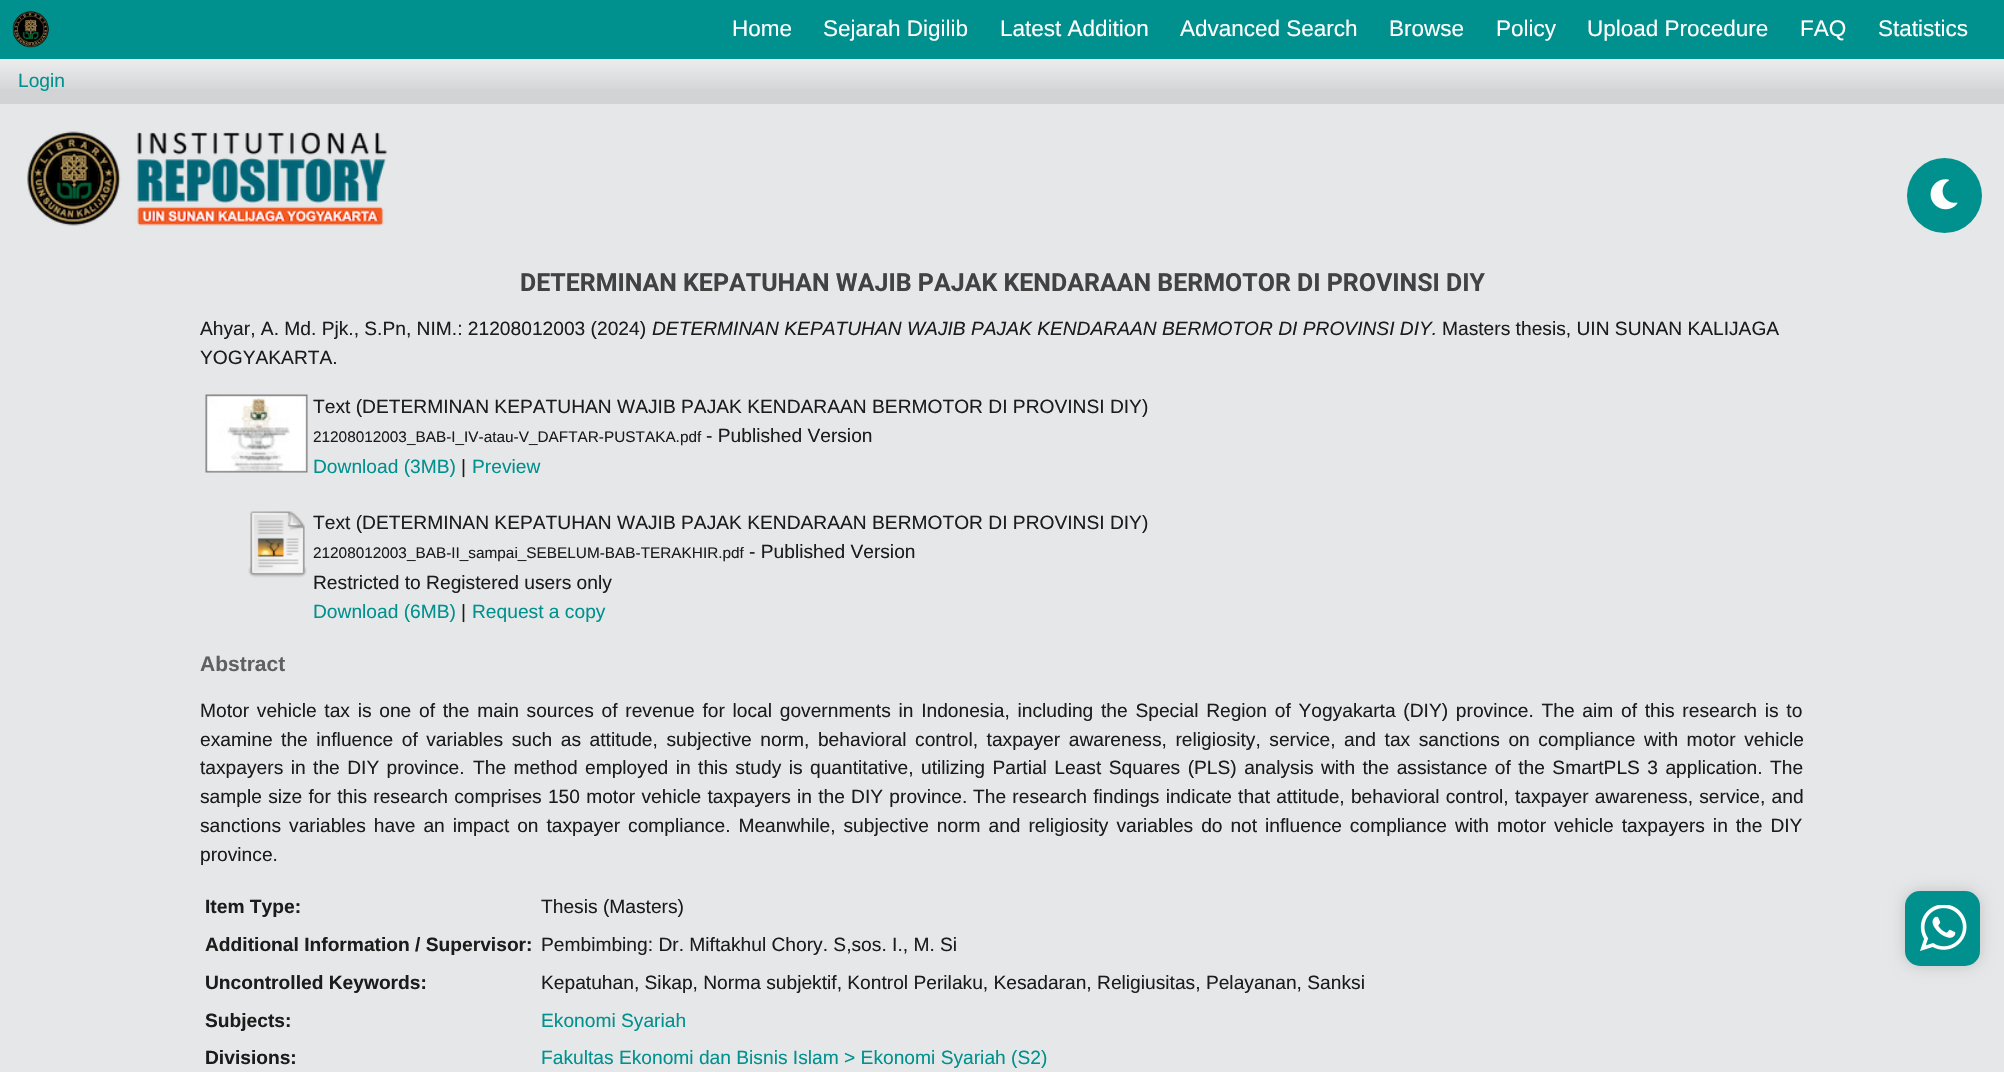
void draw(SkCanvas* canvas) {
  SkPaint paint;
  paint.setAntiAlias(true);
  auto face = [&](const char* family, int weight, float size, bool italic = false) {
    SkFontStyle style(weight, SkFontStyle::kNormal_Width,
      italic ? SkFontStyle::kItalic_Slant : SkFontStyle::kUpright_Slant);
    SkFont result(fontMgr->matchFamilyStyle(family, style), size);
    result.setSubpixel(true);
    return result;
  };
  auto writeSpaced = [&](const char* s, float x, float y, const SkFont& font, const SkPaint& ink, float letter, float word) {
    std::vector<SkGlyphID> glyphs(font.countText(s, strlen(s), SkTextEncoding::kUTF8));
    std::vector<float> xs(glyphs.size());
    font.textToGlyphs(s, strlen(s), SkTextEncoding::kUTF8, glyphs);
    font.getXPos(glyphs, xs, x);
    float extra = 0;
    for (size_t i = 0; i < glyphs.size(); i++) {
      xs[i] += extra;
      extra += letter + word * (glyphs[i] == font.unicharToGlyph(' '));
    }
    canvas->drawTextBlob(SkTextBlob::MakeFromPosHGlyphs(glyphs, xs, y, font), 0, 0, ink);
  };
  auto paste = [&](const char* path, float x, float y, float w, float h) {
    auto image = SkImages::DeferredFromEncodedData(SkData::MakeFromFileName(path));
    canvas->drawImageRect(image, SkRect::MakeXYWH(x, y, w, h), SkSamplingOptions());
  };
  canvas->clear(0xffe6e7e8);
  paint.setColor(0xff00918e);
  canvas->drawRect(SkRect::MakeXYWH(0, 0, 2004, 59), paint);
  paste("img/1.png", 12, 11, 37, 37);
  paint.setColor(0xffd2d3d5);
  canvas->drawRect(SkRect::MakeXYWH(0, 59, 2004, 45), paint);
  paste("img/2.png", 0, 59, 2004, 30);
  paste("img/3.png", 27, 131, 360, 95);
  paint.setColor(0xff00918e);
  canvas->drawCircle(1944.5f, 195.5f, 37.5f, paint);
  paste("img/4.png", 1930, 179, 28, 31);
  paste("img/5.png", 205, 394, 103, 79);
  paste("img/6.png", 248, 511, 59, 67);
  paint.setColor(0x29000000);
  paint.setMaskFilter(SkMaskFilter::MakeBlur(kNormal_SkBlurStyle, 7.5f));
  canvas->drawRoundRect(SkRect::MakeXYWH(1905, 891, 75, 75), 15, 15, paint);
  paint.setMaskFilter(nullptr);
  paint.setColor(0xff00918e);
  canvas->drawRoundRect(SkRect::MakeXYWH(1905, 891, 75, 75), 15, 15, paint);
  paste("img/7.png", 1920, 905, 47, 46);
  auto f0 = face("Liberation Sans", 400, 22.5f);
  paint.setColor(0xffffffff);
  {
    const struct { const char* s; float x, y; } items[] = {
      {"Home", 732, 36},
      {"Sejarah Digilib", 823, 36},
      {"Latest Addition", 1000, 36},
      {"Advanced Search", 1180, 36},
      {"Browse", 1389, 36},
      {"Policy", 1496, 36},
      {"Upload Procedure", 1587, 36},
      {"FAQ", 1800, 36},
      {"Statistics", 1878, 36},
    };
    for (auto [s, x, y] : items) {
      canvas->drawString(s, x, y, f0, paint);
    }
  }
  auto f1 = face("Liberation Sans", 400, 19.2f);
  paint.setColor(0xff00918e);
  canvas->drawString("Login", 18, 87, f1, paint);
  auto f2 = face("Roboto", 700, 24.95f);
  paint.setColor(0xff424242);
  canvas->drawString("DETERMINAN KEPATUHAN WAJIB PAJAK KENDARAAN BERMOTOR DI PROVINSI DIY", 520, 291, f2, paint);
  paint.setColor(0xff1c1c1c);
  canvas->drawString("Ahyar, A. Md. Pjk., S.Pn, NIM.: 21208012003 (2024)", 200, 335, f1, paint);
  auto f3 = face("Liberation Sans", 400, 19.2f, true);
  canvas->drawString("DETERMINAN KEPATUHAN WAJIB PAJAK KENDARAAN BERMOTOR DI PROVINSI DIY.", 652, 335, f3, paint);
  {
    const struct { const char* s; float x, y; } items[] = {
      {"Masters thesis, UIN SUNAN KALIJAGA", 1442, 335},
      {"YOGYAKARTA.", 200, 364},
      {"Text (DETERMINAN KEPATUHAN WAJIB PAJAK KENDARAAN BERMOTOR DI PROVINSI DIY)", 313, 413},
    };
    for (auto [s, x, y] : items) {
      canvas->drawString(s, x, y, f1, paint);
    }
  }
  auto f4 = face("Liberation Sans", 400, 15.35f);
  canvas->drawString("21208012003_BAB-I_IV-atau-V_DAFTAR-PUSTAKA.pdf", 313, 442, f4, paint);
  canvas->drawString("- Published Version", 706, 442, f1, paint);
  paint.setColor(0xff00918e);
  canvas->drawString("Download (3MB)", 313, 473, f1, paint);
  paint.setColor(0xff1c1c1c);
  canvas->drawString("|", 461, 473, f1, paint);
  paint.setColor(0xff00918e);
  canvas->drawString("Preview", 472, 473, f1, paint);
  paint.setColor(0xff1c1c1c);
  canvas->drawString("Text (DETERMINAN KEPATUHAN WAJIB PAJAK KENDARAAN BERMOTOR DI PROVINSI DIY)", 313, 529, f1, paint);
  canvas->drawString("21208012003_BAB-II_sampai_SEBELUM-BAB-TERAKHIR.pdf", 313, 558, f4, paint);
  canvas->drawString("- Published Version", 749, 558, f1, paint);
  canvas->drawString("Restricted to Registered users only", 313, 589, f1, paint);
  paint.setColor(0xff00918e);
  canvas->drawString("Download (6MB)", 313, 618, f1, paint);
  paint.setColor(0xff1c1c1c);
  canvas->drawString("|", 461, 618, f1, paint);
  paint.setColor(0xff00918e);
  canvas->drawString("Request a copy", 472, 618, f1, paint);
  auto f5 = face("Liberation Sans", 700, 21);
  paint.setColor(0xff606060);
  canvas->drawString("Abstract", 200, 671, f5, paint);
  paint.setColor(0xff1c1c1c);
  writeSpaced("Motor vehicle tax is one of the main sources of revenue for local governments in Indonesia, including the Special Region of Yogyakarta (DIY) province. The aim of this research is to", 200, 717, f1, paint, 0, 2.4f);
  writeSpaced("examine the influence of variables such as attitude, subjective norm, behavioral control, taxpayer awareness, religiosity, service, and tax sanctions on compliance with motor vehicle", 200, 746, f1, paint, 0, 3.2f);
  writeSpaced("taxpayers in the DIY province.", 200, 774, f1, paint, 0, 2.1f);
  writeSpaced("The method employed in this study is quantitative, utilizing Partial Least Squares (PLS) analysis with the assistance of the SmartPLS 3 application. The", 473, 774, f1, paint, 0, 2.1f);
  writeSpaced("sample size for this research comprises 150 motor vehicle taxpayers in the DIY province.", 200, 803, f1, paint, 0, 0.9f);
  writeSpaced("The research findings indicate that attitude, behavioral control, taxpayer awareness, service, and", 973, 803, f1, paint, 0, 0.9f);
  writeSpaced("sanctions variables have an impact on taxpayer compliance. Meanwhile, subjective norm and religiosity variables do not influence compliance with motor vehicle taxpayers in the DIY", 200, 832, f1, paint, 0, 2.6f);
  canvas->drawString("province.", 200, 861, f1, paint);
  auto f6 = face("Liberation Sans", 700, 19.2f);
  canvas->drawString("Item Type:", 205, 913, f6, paint);
  canvas->drawString("Thesis (Masters)", 541, 913, f1, paint);
  canvas->drawString("Additional Information / Supervisor:", 205, 951, f6, paint);
  canvas->drawString("Pembimbing: Dr. Miftakhul Chory. S,sos. I., M. Si", 541, 951, f1, paint);
  canvas->drawString("Uncontrolled Keywords:", 205, 989, f6, paint);
  canvas->drawString("Kepatuhan, Sikap, Norma subjektif, Kontrol Perilaku, Kesadaran, Religiusitas, Pelayanan, Sanksi", 541, 989, f1, paint);
  canvas->drawString("Subjects:", 205, 1027, f6, paint);
  paint.setColor(0xff00918e);
  canvas->drawString("Ekonomi Syariah", 541, 1027, f1, paint);
  paint.setColor(0xff1c1c1c);
  canvas->drawString("Divisions:", 205, 1064, f6, paint);
  paint.setColor(0xff00918e);
  canvas->drawString("Fakultas Ekonomi dan Bisnis Islam > Ekonomi Syariah (S2)", 541, 1064, f1, paint);
}
